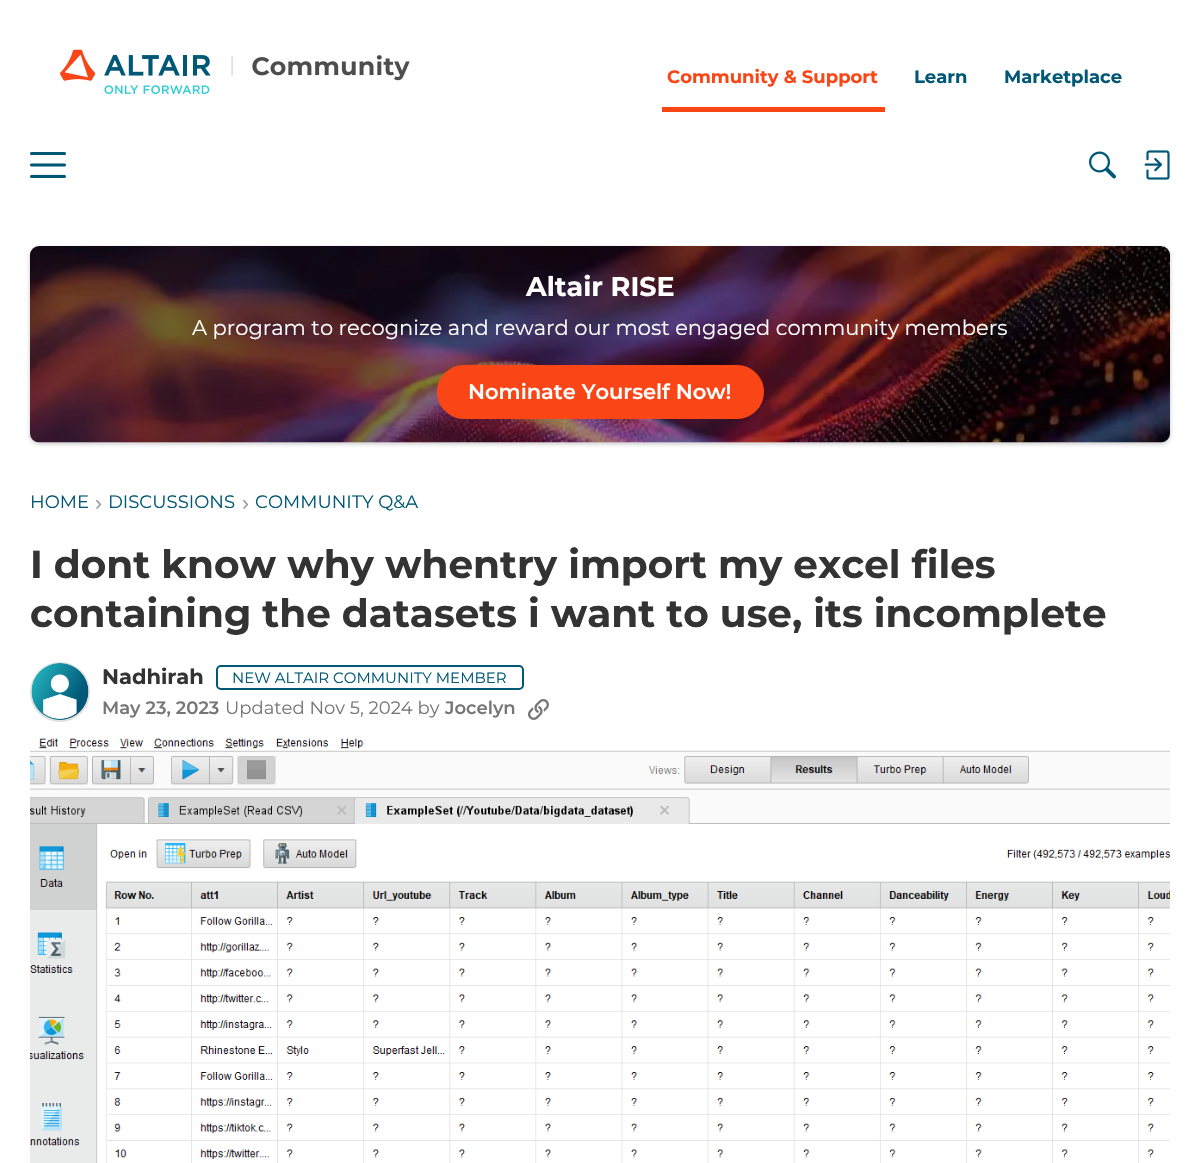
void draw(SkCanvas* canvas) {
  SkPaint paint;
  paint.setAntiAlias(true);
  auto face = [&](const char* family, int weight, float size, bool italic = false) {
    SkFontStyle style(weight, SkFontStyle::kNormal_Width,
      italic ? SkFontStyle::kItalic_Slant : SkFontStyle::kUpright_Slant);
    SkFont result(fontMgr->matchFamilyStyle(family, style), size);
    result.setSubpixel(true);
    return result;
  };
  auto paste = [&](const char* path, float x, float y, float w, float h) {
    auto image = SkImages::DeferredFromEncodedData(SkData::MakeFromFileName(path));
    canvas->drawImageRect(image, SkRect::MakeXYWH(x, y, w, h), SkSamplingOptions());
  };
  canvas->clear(0xffffffff);
  paste("img/1.png", 60, 49, 350, 45);
  paint.setColor(0xfffa4616);
  canvas->drawRect(SkRect::MakeXYWH(662, 107, 223, 5), paint);
  paste("img/2.png", 30, 152, 36, 26);
  paste("img/3.png", 1089, 151, 27, 28);
  paste("img/4.png", 1144, 150, 26, 30);
  paint.setColor(0x38000000);
  paint.setMaskFilter(SkMaskFilter::MakeBlur(kNormal_SkBlurStyle, 2));
  canvas->drawRoundRect(SkRect::MakeXYWH(30, 248, 1140, 196), 9, 9, paint);
  paint.setMaskFilter(nullptr);
  paste("img/5.png", 30, 246, 1140, 197);
  paint.setColor(0xfffa4616);
  canvas->drawRoundRect(SkRect::MakeXYWH(438, 366, 325, 52), 26, 26, paint);
  paint.setStroke(true);
  paint.setStrokeWidth(2);
  canvas->drawRoundRect(SkRect::MakeXYWH(438, 366, 325, 52), 26, 26, paint);
  paint.setColor(0xffe0e0e0);
  canvas->drawCircle(60, 692, 29, paint);
  paste("img/6.png", 31, 663, 58, 57);
  paint.setColor(0xff005776);
  canvas->drawRoundRect(SkRect::MakeXYWH(217, 666, 306, 23), 4, 4, paint);
  paste("img/7.png", 528, 699, 21, 21);
  paste("img/8.png", 30, 738, 1140, 425);
  auto f0 = face("Montserrat", 700, 18);
  paint.setStroke(false);
  paint.setColor(0xfffa4616);
  canvas->drawString("Community & Support", 667, 83, f0, paint);
  paint.setColor(0xff005776);
  canvas->drawString("Learn", 914, 83, f0, paint);
  canvas->drawString("Marketplace", 1004, 83, f0, paint);
  auto f1 = face("Montserrat", 700, 27);
  paint.setColor(0xffffffff);
  canvas->drawString("Altair RISE", 526, 296, f1, paint);
  auto f2 = face("Montserrat", 400, 21);
  canvas->drawString("A program to recognize and reward our most engaged community members", 192, 335, f2, paint);
  auto f3 = face("Montserrat", 600, 21);
  canvas->drawString("Nominate Yourself Now!", 468, 399, f3, paint);
  auto f4 = face("Montserrat", 400, 18);
  paint.setColor(0xff005776);
  canvas->drawString("HOME", 30, 508, f4, paint);
  auto f5 = face("Liberation Sans", 400, 21);
  paint.setColor(0xff999999);
  canvas->drawString("›", 95, 510, f5, paint);
  paint.setColor(0xff005776);
  canvas->drawString("DISCUSSIONS", 108, 508, f4, paint);
  paint.setColor(0xff999999);
  canvas->drawString("›", 242, 510, f5, paint);
  paint.setColor(0xff005776);
  canvas->drawString("COMMUNITY Q&A", 255, 508, f4, paint);
  auto f6 = face("Montserrat", 700, 39);
  paint.setColor(0xff333333);
  canvas->drawString("I dont know why whentry import my excel files", 30, 578, f6, paint);
  canvas->drawString("containing the datasets i want to use, its incomplete", 30, 627, f6, paint);
  auto f7 = face("Montserrat", 700, 21);
  canvas->drawString("Nadhirah", 102, 684, f7, paint);
  auto f8 = face("Montserrat", 400, 15);
  paint.setColor(0xff005776);
  canvas->drawString("NEW ALTAIR COMMUNITY MEMBER", 232, 683, f8, paint);
  auto f9 = face("Montserrat", 600, 18);
  paint.setColor(0xff767676);
  canvas->drawString("May 23, 2023", 102, 714, f9, paint);
  canvas->drawString("Updated Nov 5, 2024 by", 225, 714, f4, paint);
  canvas->drawString("Jocelyn", 445, 714, f9, paint);
}
